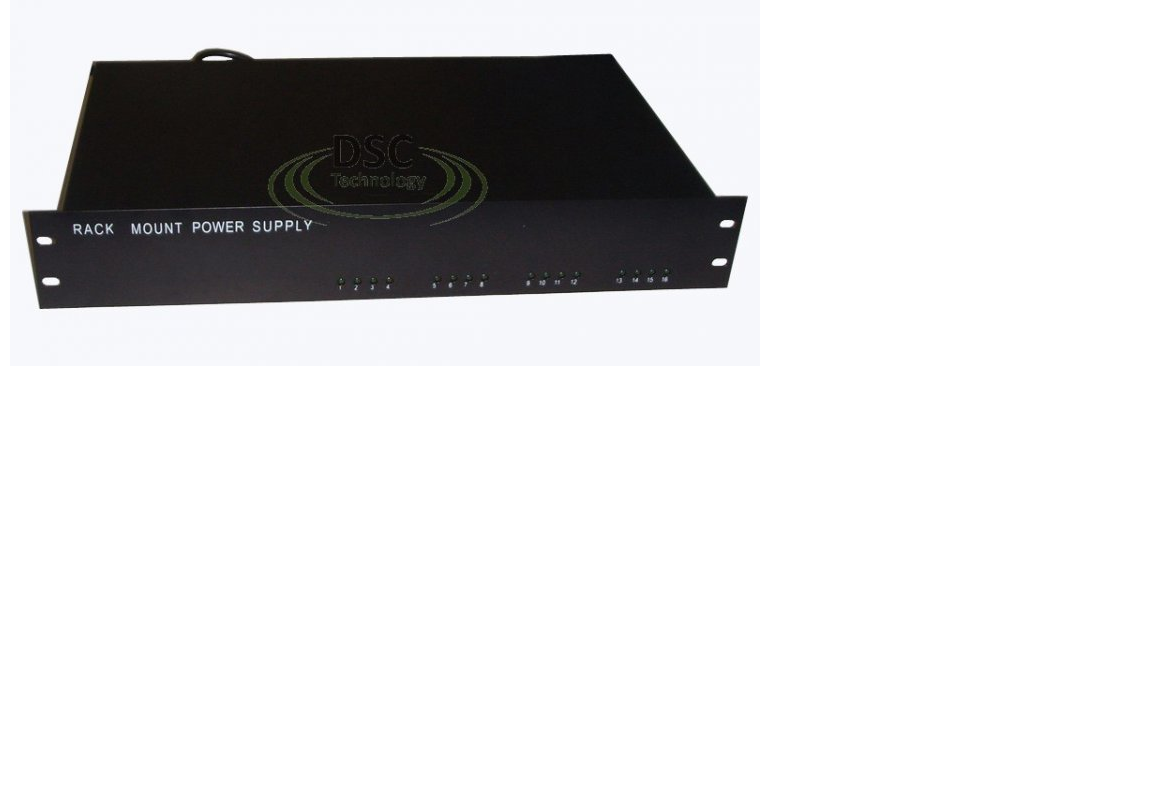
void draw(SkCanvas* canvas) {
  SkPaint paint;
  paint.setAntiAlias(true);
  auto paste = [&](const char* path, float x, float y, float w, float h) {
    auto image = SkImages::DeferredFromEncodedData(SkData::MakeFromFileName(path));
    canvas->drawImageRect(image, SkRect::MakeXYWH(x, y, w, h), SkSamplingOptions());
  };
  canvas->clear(0xffffffff);
  paste("img/1.png", 10, 0, 750, 366);
}
